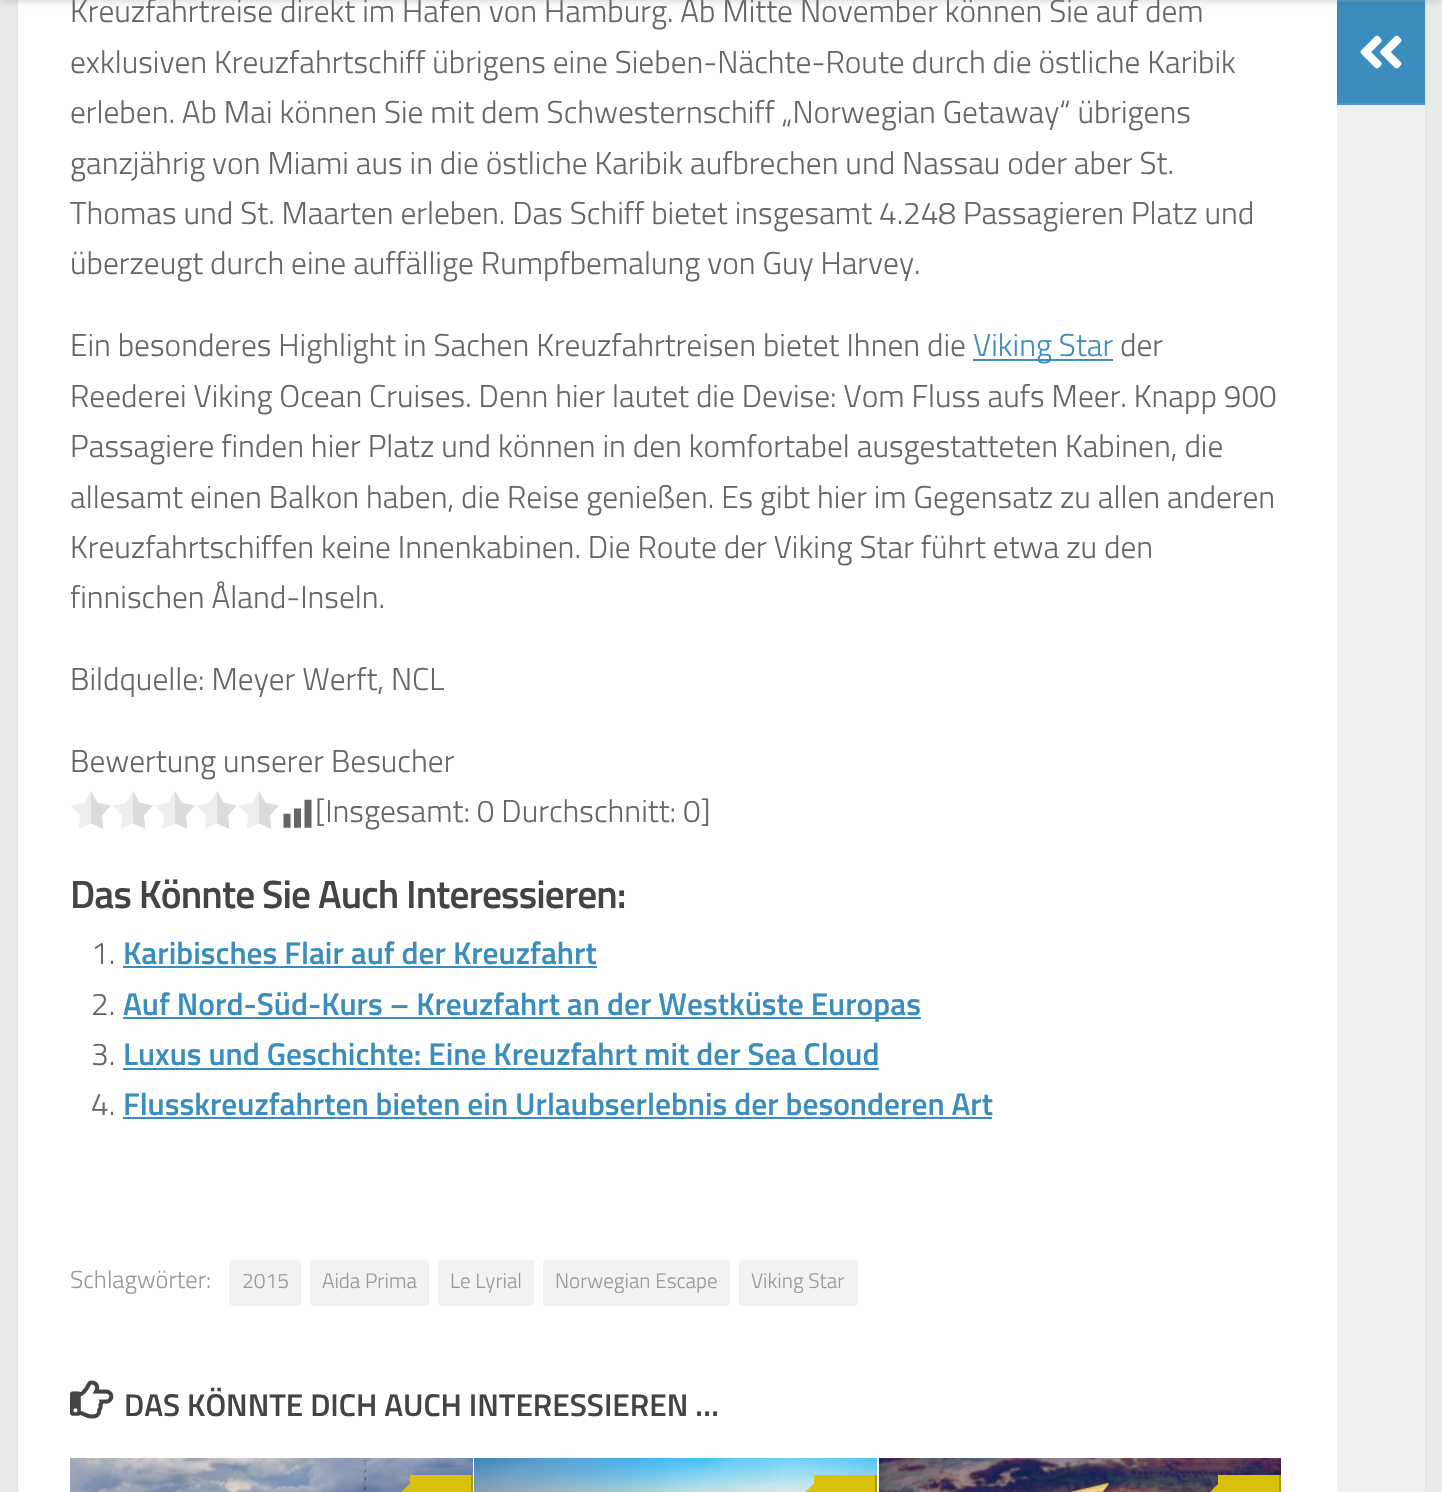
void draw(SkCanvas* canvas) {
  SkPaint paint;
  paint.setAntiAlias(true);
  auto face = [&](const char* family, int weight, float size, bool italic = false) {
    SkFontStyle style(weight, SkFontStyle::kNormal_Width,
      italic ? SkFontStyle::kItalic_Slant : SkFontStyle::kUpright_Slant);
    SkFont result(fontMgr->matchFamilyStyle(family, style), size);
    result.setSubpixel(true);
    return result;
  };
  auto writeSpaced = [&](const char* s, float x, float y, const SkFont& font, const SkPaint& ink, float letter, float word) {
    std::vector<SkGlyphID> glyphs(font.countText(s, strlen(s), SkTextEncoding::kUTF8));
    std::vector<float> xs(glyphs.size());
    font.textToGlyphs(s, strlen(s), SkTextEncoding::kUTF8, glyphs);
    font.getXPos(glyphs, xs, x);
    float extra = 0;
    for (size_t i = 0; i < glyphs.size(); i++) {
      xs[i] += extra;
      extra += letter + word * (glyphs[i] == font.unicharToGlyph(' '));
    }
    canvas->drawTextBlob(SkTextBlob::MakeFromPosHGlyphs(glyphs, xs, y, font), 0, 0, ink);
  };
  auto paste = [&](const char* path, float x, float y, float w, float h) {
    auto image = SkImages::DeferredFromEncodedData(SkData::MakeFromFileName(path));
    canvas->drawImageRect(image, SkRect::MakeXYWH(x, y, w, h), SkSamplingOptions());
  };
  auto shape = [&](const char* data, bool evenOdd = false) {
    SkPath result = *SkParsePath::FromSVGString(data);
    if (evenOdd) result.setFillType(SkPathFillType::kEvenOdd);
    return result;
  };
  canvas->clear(0xffeaeaea);
  paint.setColor(0x1a000000);
  paint.setMaskFilter(SkMaskFilter::MakeBlur(kNormal_SkBlurStyle, 1));
  canvas->drawRect(SkRect::MakeXYWH(18, -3, 1407, 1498), paint);
  paint.setMaskFilter(nullptr);
  paint.setColor(0xffffffff);
  canvas->drawRect(SkRect::MakeXYWH(18, 0, 1319, 1492), paint);
  paint.setColor(0xff3b8dbd);
  canvas->drawRect(SkRect::MakeXYWH(973, 359, 140, 2), paint);
  paste("img/1.png", 71, 791, 208, 38);
  paste("img/2.png", 283, 799, 29, 29);
  {
    const struct { float x, y, w, h; SkColor color; } items[] = {
      {123, 966, 474, 2, 0xff3b8dbd},
      {123, 1017, 798, 2, 0xff3b8dbd},
      {123, 1068, 756, 2, 0xff3b8dbd},
      {123, 1117, 869, 2, 0xff3b8dbd},
    };
    for (auto [x, y, w, h, color] : items) {
      paint.setColor(color);
      canvas->drawRect(SkRect::MakeXYWH(x, y, w, h), paint);
    }
  }
  paint.setColor(0xfff2f2f2);
  canvas->drawRoundRect(SkRect::MakeXYWH(229, 1260, 72, 46), 4, 4, paint);
  canvas->drawRoundRect(SkRect::MakeXYWH(310, 1260, 119, 46), 4, 4, paint);
  canvas->drawRoundRect(SkRect::MakeXYWH(438, 1260, 96, 46), 4, 4, paint);
  canvas->drawRoundRect(SkRect::MakeXYWH(543, 1260, 187, 46), 4, 4, paint);
  canvas->drawRoundRect(SkRect::MakeXYWH(739, 1260, 119, 46), 4, 4, paint);
  paste("img/3.png", 70, 1380, 44, 39);
  paste("img/4.png", 70, 1458, 403, 34);
  paint.setColor(0xffd8c00d);
  canvas->drawRect(SkRect::MakeXYWH(410, 1475, 61, 17), paint);
  paint.setColor(0xffad9a0a);
  canvas->drawRect(SkRect::MakeXYWH(471, 1475, 2, 17), paint);
  paint.setColor(0xffd8c00d);
  canvas->drawPath(shape("M413 1480.5V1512L397 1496Z"), paint);
  paste("img/5.png", 474, 1458, 403, 34);
  canvas->drawRect(SkRect::MakeXYWH(814, 1475, 61, 17), paint);
  paint.setColor(0xffad9a0a);
  canvas->drawRect(SkRect::MakeXYWH(875, 1475, 2, 17), paint);
  paint.setColor(0xffd8c00d);
  canvas->drawPath(shape("M817 1480.5V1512L801.5 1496Z"), paint);
  paste("img/6.png", 879, 1458, 402, 34);
  canvas->drawRect(SkRect::MakeXYWH(1218, 1475, 61, 17), paint);
  paint.setColor(0xffad9a0a);
  canvas->drawRect(SkRect::MakeXYWH(1279, 1475, 2, 17), paint);
  paint.setColor(0xffd8c00d);
  canvas->drawPath(shape("M1221.5 1480.5V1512L1206 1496Z"), paint);
  paint.setColor(0xff3b8dbd);
  canvas->drawRect(SkRect::MakeXYWH(1337, 0, 88, 103), paint);
  paint.setColor(0xff4f98c4);
  canvas->drawRect(SkRect::MakeXYWH(1337, 103, 88, 2), paint);
  paste("img/7.png", 1360, 35, 42, 34);
  paint.setColor(0xfff0f0f0);
  canvas->drawRect(SkRect::MakeXYWH(1337, 105, 88, 1387), paint);
  auto f0 = face("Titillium", 300, 31.5f);
  paint.setColor(0xff666666);
  canvas->drawString("Kreuzfahrtreise direkt im Hafen von Hamburg. Ab Mitte November können Sie auf dem", 70, 22, f0, paint);
  paint.setColor(0x26ffffff);
  canvas->drawRect(SkRect::MakeXYWH(0, 0, 1442, 2), paint);
  paint.setColor(0x33000000);
  paint.setMaskFilter(SkMaskFilter::MakeBlur(kNormal_SkBlurStyle, 4.5f));
  canvas->drawRect(SkRect::MakeXYWH(0, -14, 1442, 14), paint);
  paint.setMaskFilter(nullptr);
  paint.setColor(0xff666666);
  {
    const struct { const char* s; float x, y; } items[] = {
      {"exklusiven Kreuzfahrtschiff übrigens eine Sieben-Nächte-Route durch die östliche Karibik", 70, 73},
      {"erleben. Ab Mai können Sie mit dem Schwesternschiff „Norwegian Getaway“ übrigens", 70, 123},
      {"ganzjährig von Miami aus in die östliche Karibik aufbrechen und Nassau oder aber St.", 70, 174},
      {"Thomas und St. Maarten erleben. Das Schiff bietet insgesamt 4.248 Passagieren Platz und", 70, 224},
      {"überzeugt durch eine auffällige Rumpfbemalung von Guy Harvey.", 70, 274},
      {"Ein besonderes Highlight in Sachen Kreuzfahrtreisen bietet Ihnen die", 70, 356},
    };
    for (auto [s, x, y] : items) {
      canvas->drawString(s, x, y, f0, paint);
    }
  }
  paint.setColor(0xff3b8dbd);
  canvas->drawString("Viking Star", 973, 356, f0, paint);
  paint.setColor(0xff666666);
  {
    const struct { const char* s; float x, y; } items[] = {
      {"der", 1120, 356},
      {"Reederei Viking Ocean Cruises. Denn hier lautet die Devise: Vom Fluss aufs Meer. Knapp 900", 70, 407},
      {"Passagiere finden hier Platz und können in den komfortabel ausgestatteten Kabinen, die", 70, 457},
      {"allesamt einen Balkon haben, die Reise genießen. Es gibt hier im Gegensatz zu allen anderen", 70, 508},
      {"Kreuzfahrtschiffen keine Innenkabinen. Die Route der Viking Star führt etwa zu den", 70, 558},
      {"finnischen Åland-Inseln.", 70, 608},
      {"Bildquelle: Meyer Werft, NCL", 70, 690},
      {"Bewertung unserer Besucher", 70, 772},
      {"[Insgesamt: 0 Durchschnitt: 0]", 315, 822},
    };
    for (auto [s, x, y] : items) {
      canvas->drawString(s, x, y, f0, paint);
    }
  }
  auto f1 = face("Titillium", 600, 39.4f);
  paint.setColor(0xff444444);
  writeSpaced("Das Könnte Sie Auch Interessieren:", 70, 908, f1, paint, -0.9f, 0);
  paint.setColor(0xff666666);
  canvas->drawString("1.", 91, 964, f0, paint);
  auto f2 = face("Titillium", 600, 31.5f);
  paint.setColor(0xff3b8dbd);
  canvas->drawString("Karibisches Flair auf der Kreuzfahrt", 123, 964, f2, paint);
  paint.setColor(0xff666666);
  canvas->drawString("2.", 91, 1015, f0, paint);
  paint.setColor(0xff3b8dbd);
  canvas->drawString("Auf Nord-Süd-Kurs – Kreuzfahrt an der Westküste Europas", 123, 1015, f2, paint);
  paint.setColor(0xff666666);
  canvas->drawString("3.", 91, 1065, f0, paint);
  paint.setColor(0xff3b8dbd);
  canvas->drawString("Luxus und Geschichte: Eine Kreuzfahrt mit der Sea Cloud", 123, 1065, f2, paint);
  paint.setColor(0xff666666);
  canvas->drawString("4.", 91, 1115, f0, paint);
  paint.setColor(0xff3b8dbd);
  canvas->drawString("Flusskreuzfahrten bieten ein Urlaubserlebnis der besonderen Art", 123, 1115, f2, paint);
  auto f3 = face("Titillium", 300, 24.5f);
  paint.setColor(0xff999999);
  canvas->drawString("Schlagwörter:", 70, 1288, f3, paint);
  auto f4 = face("Titillium", 300, 21);
  {
    const struct { const char* s; float x, y; } items[] = {
      {"2015", 242, 1288},
      {"Aida Prima", 322, 1288},
      {"Le Lyrial", 450, 1288},
      {"Norwegian Escape", 555, 1288},
      {"Viking Star", 751, 1288},
    };
    for (auto [s, x, y] : items) {
      canvas->drawString(s, x, y, f4, paint);
    }
  }
  paint.setColor(0xff444444);
  canvas->drawString("DAS KÖNNTE DICH AUCH INTERESSIEREN …", 124, 1416, f2, paint);
}
